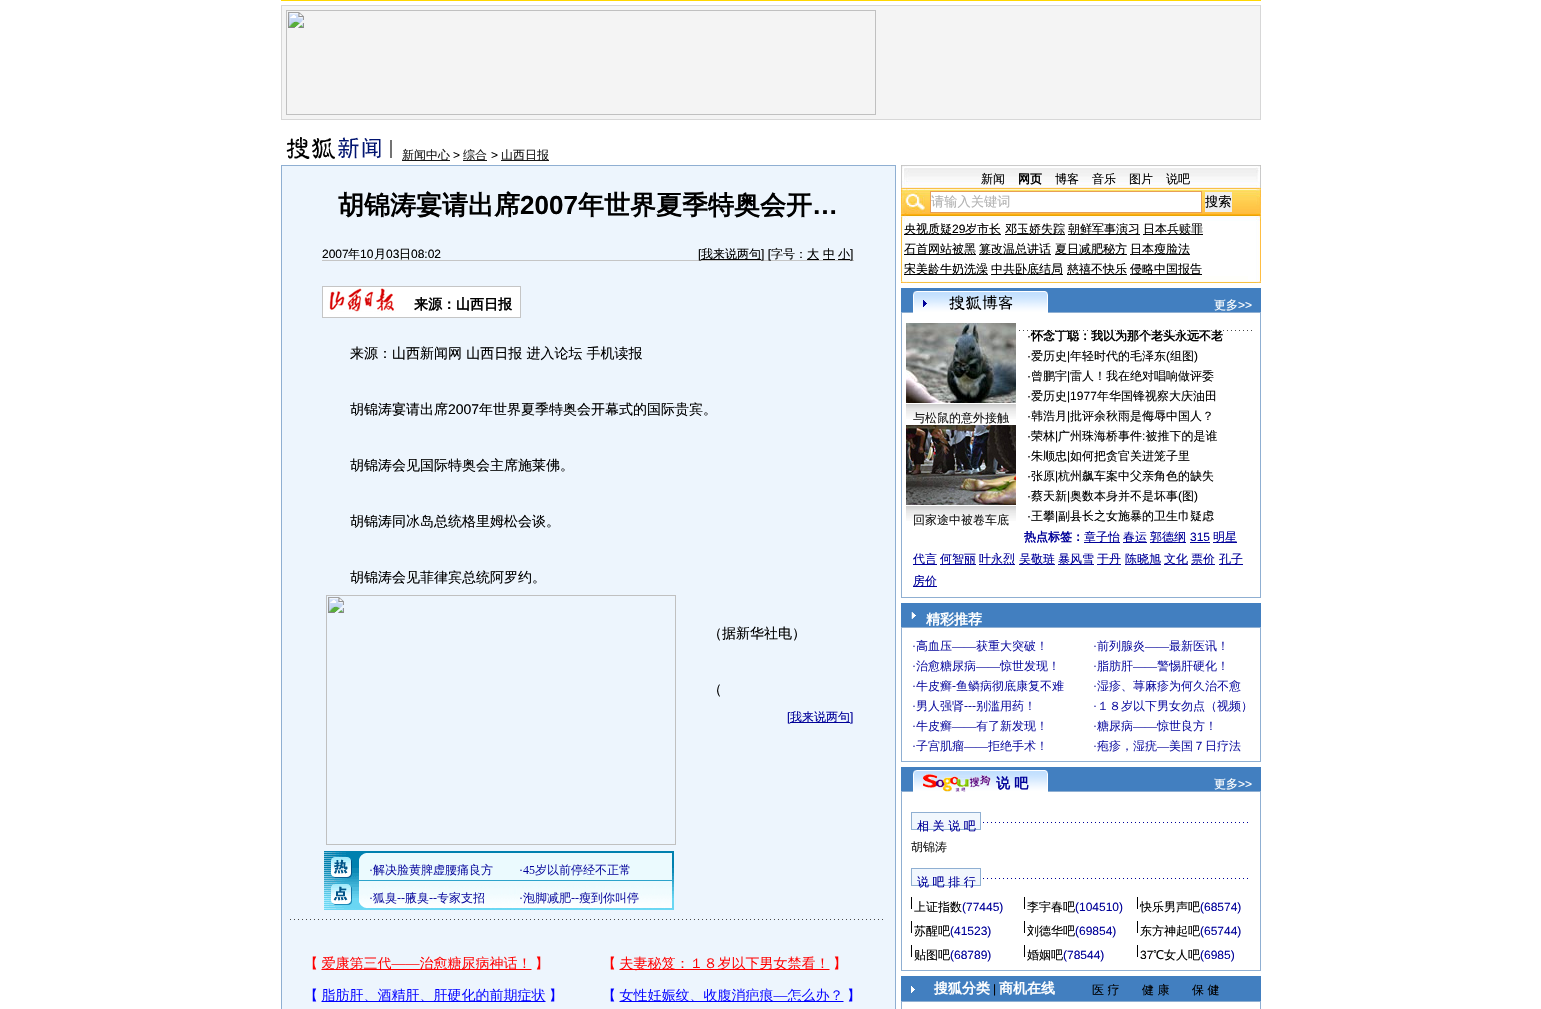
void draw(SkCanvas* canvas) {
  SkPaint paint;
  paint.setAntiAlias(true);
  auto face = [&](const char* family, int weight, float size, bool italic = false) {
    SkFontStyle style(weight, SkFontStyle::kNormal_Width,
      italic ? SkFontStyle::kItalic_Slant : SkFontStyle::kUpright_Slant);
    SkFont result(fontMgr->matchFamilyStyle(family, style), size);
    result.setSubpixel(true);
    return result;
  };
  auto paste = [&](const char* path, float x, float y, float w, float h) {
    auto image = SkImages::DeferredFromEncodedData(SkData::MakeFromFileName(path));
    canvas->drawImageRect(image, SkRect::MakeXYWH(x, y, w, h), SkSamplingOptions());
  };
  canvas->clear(0xffffffff);
  paint.setColor(0xffffd700);
  canvas->drawRect(SkRect::MakeXYWH(281, 0, 980, 1), paint);
  paint.setColor(0xfff4f4f4);
  canvas->drawRect(SkRect::MakeXYWH(281.5f, 5.5f, 979, 114), paint);
  paint.setStroke(true);
  paint.setStrokeWidth(1);
  paint.setColor(0xffd7d7d7);
  canvas->drawRect(SkRect::MakeXYWH(281.5f, 5.5f, 979, 114), paint);
  paste("img/1.png", 286, 10, 590, 105);
  paste("img/2.png", 286, 137, 106, 22);
  paint.setStroke(false);
  {
    const struct { float x, y, w, h; SkColor color; } items[] = {
      {402, 160, 48, 1, 0xff191919},
      {463, 160, 24, 1, 0xff191919},
      {501, 160, 48, 1, 0xff191919},
    };
    for (auto [x, y, w, h, color] : items) {
      paint.setColor(color);
      canvas->drawRect(SkRect::MakeXYWH(x, y, w, h), paint);
    }
  }
  paint.setColor(0xffedf5fd);
  canvas->drawRect(SkRect::MakeXYWH(281.5f, 165.5f, 614, 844), paint);
  paint.setStroke(true);
  paint.setColor(0xff8fafd2);
  canvas->drawRect(SkRect::MakeXYWH(281.5f, 165.5f, 614, 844), paint);
  paint.setStroke(false);
  {
    const struct { float x, y, w, h; SkColor color; } items[] = {
      {322, 260, 532, 1, 0xffc5c5c5},
      {701, 259, 60, 1, 0xff000000},
      {807, 259, 12, 1, 0xff000000},
      {823, 259, 12, 1, 0xff000000},
      {838, 259, 12, 1, 0xff000000},
    };
    for (auto [x, y, w, h, color] : items) {
      paint.setColor(color);
      canvas->drawRect(SkRect::MakeXYWH(x, y, w, h), paint);
    }
  }
  paint.setColor(0xffffffff);
  canvas->drawRect(SkRect::MakeXYWH(322.5f, 286.5f, 198, 31), paint);
  paint.setStroke(true);
  paint.setColor(0xffc5c5c5);
  canvas->drawRect(SkRect::MakeXYWH(322.5f, 286.5f, 198, 31), paint);
  paste("img/3.png", 329, 288, 67, 24);
  paste("img/4.png", 326, 595, 350, 250);
  paste("img/5.png", 324, 851, 350, 59);
  paint.setStroke(false);
  paint.setColor(0xff000099);
  canvas->drawRect(SkRect::MakeXYWH(790, 722, 60, 1), paint);
  paste("img/6.png", 290, 919, 593, 1);
  paste("img/7.png", 312, 956, 527, 15);
  paste("img/8.png", 312, 988, 541, 14);
  paste("img/9.png", 901, 165, 360, 118);
  paint.setColor(0xffffffff);
  canvas->drawRect(SkRect::MakeXYWH(930.5f, 191.5f, 271, 21), paint);
  paint.setStroke(true);
  paint.setColor(0xffe89f57);
  canvas->drawRect(SkRect::MakeXYWH(930.5f, 191.5f, 271, 21), paint);
  paint.setStroke(false);
  {
    const struct { float x, y, w, h; SkColor color; } items[] = {
      {1205, 192, 27, 20, 0xffefefef},
      {904, 234, 97, 1, 0xff000000},
      {1005, 234, 60, 1, 0xff000000},
      {1068, 234, 72, 1, 0xff000000},
      {1143, 234, 60, 1, 0xff000000},
      {904, 254, 72, 1, 0xff000000},
      {979, 254, 72, 1, 0xff000000},
      {1055, 254, 72, 1, 0xff000000},
      {1130, 254, 60, 1, 0xff000000},
      {904, 274, 84, 1, 0xff000000},
      {991, 274, 72, 1, 0xff000000},
      {1067, 274, 60, 1, 0xff000000},
      {1130, 274, 72, 1, 0xff000000},
    };
    for (auto [x, y, w, h, color] : items) {
      paint.setColor(color);
      canvas->drawRect(SkRect::MakeXYWH(x, y, w, h), paint);
    }
  }
  paste("img/10.png", 901, 288, 360, 25);
  paste("img/11.png", 949, 295, 64, 15);
  {
    const struct { float x, y, w, h; SkColor color; } items[] = {
      {1260, 313, 1, 285, 0xff8fafd2},
      {901, 597, 360, 1, 0xff8fafd2},
      {901, 313, 1, 285, 0xff8fafd2},
    };
    for (auto [x, y, w, h, color] : items) {
      paint.setColor(color);
      canvas->drawRect(SkRect::MakeXYWH(x, y, w, h), paint);
    }
  }
  paste("img/12.png", 906, 323, 110, 80);
  paste("img/13.png", 906, 404, 110, 15);
  paste("img/14.png", 906, 425, 110, 80);
  paste("img/13.png", 906, 506, 110, 15);
  paste("img/15.png", 1019, 330, 233, 1);
  {
    const struct { float x, y, w, h; SkColor color; } items[] = {
      {1084, 542, 36, 1, 0xff000099},
      {1123, 542, 24, 1, 0xff000099},
      {1150, 542, 36, 1, 0xff000099},
      {1190, 542, 20, 1, 0xff000099},
      {1213, 542, 24, 1, 0xff000099},
      {913, 564, 24, 1, 0xff000099},
      {940, 564, 36, 1, 0xff000099},
      {979, 564, 36, 1, 0xff000099},
      {1019, 564, 36, 1, 0xff000099},
      {1058, 564, 36, 1, 0xff000099},
      {1097, 564, 24, 1, 0xff000099},
      {1125, 564, 36, 1, 0xff000099},
      {1164, 564, 24, 1, 0xff000099},
      {1191, 564, 24, 1, 0xff000099},
      {1219, 564, 24, 1, 0xff000099},
      {913, 586, 24, 1, 0xff000099},
      {901, 603, 360, 24, 0xff427fc0},
    };
    for (auto [x, y, w, h, color] : items) {
      paint.setColor(color);
      canvas->drawRect(SkRect::MakeXYWH(x, y, w, h), paint);
    }
  }
  paste("img/16.png", 911, 612, 5, 7);
  paint.setStroke(true);
  paint.setColor(0xff8fafd2);
  canvas->drawRect(SkRect::MakeXYWH(901.5f, 627.5f, 359, 134), paint);
  paste("img/17.png", 913, 639, 333, 113);
  paste("img/10.png", 901, 767, 360, 25);
  paste("img/18.png", 923, 774, 68, 18);
  paint.setStroke(false);
  {
    const struct { float x, y, w, h; SkColor color; } items[] = {
      {1260, 792, 1, 179, 0xff8fafd2},
      {901, 970, 360, 1, 0xff8fafd2},
      {901, 792, 1, 179, 0xff8fafd2},
    };
    for (auto [x, y, w, h, color] : items) {
      paint.setColor(color);
      canvas->drawRect(SkRect::MakeXYWH(x, y, w, h), paint);
    }
  }
  paste("img/19.png", 981, 822, 267, 1);
  paint.setColor(0xfff1f7fd);
  canvas->drawRect(SkRect::MakeXYWH(911.5f, 812.5f, 69, 17), paint);
  paint.setStroke(true);
  paint.setColor(0xff8fafd2);
  canvas->drawRect(SkRect::MakeXYWH(911.5f, 812.5f, 69, 17), paint);
  paste("img/19.png", 981, 878, 267, 1);
  paint.setStroke(false);
  paint.setColor(0xfff1f7fd);
  canvas->drawRect(SkRect::MakeXYWH(911.5f, 868.5f, 69, 17), paint);
  paint.setStroke(true);
  paint.setColor(0xff8fafd2);
  canvas->drawRect(SkRect::MakeXYWH(911.5f, 868.5f, 69, 17), paint);
  paint.setStroke(false);
  {
    const struct { float x, y, w, h; SkColor color; } items[] = {
      {911, 897, 1, 12, 0xff000000},
      {1024, 897, 1, 12, 0xff000000},
      {1137, 897, 1, 12, 0xff000000},
      {911, 921, 1, 12, 0xff000000},
      {1024, 921, 1, 12, 0xff000000},
      {1137, 921, 1, 12, 0xff000000},
      {911, 945, 1, 12, 0xff000000},
      {1024, 945, 1, 12, 0xff000000},
      {1137, 945, 1, 12, 0xff000000},
      {901, 976, 360, 25, 0xff427fc0},
    };
    for (auto [x, y, w, h, color] : items) {
      paint.setColor(color);
      canvas->drawRect(SkRect::MakeXYWH(x, y, w, h), paint);
    }
  }
  paste("img/20.png", 911, 986, 4, 7);
  paint.setStroke(true);
  paint.setColor(0xff8fafd2);
  canvas->drawRect(SkRect::MakeXYWH(901.5f, 1001.5f, 359, 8), paint);
  auto f0 = face("WenQuanYi Zen Hei", 500, 12);
  paint.setStroke(false);
  paint.setColor(0xff191919);
  canvas->drawString("新闻中心", 402, 159, f0, paint);
  auto f1 = face("Liberation Sans", 400, 12);
  paint.setColor(0xff000000);
  canvas->drawString(">", 453, 159, f1, paint);
  paint.setColor(0xff191919);
  canvas->drawString("综合", 463, 159, f0, paint);
  paint.setColor(0xff000000);
  canvas->drawString(">", 491, 159, f1, paint);
  paint.setColor(0xff191919);
  canvas->drawString("山西日报", 501, 159, f0, paint);
  auto f2 = face("WenQuanYi Zen Hei", 700, 26);
  paint.setColor(0xff000000);
  canvas->drawString("胡锦涛宴请出席", 338, 214, f2, paint);
  auto f3 = face("Liberation Sans", 700, 26);
  canvas->drawString("2007", 520, 214, f3, paint);
  canvas->drawString("年世界夏季特奥会开", 578, 214, f2, paint);
  canvas->drawString("…", 812, 214, f3, paint);
  canvas->drawString("2007", 322, 258, f1, paint);
  canvas->drawString("年", 348, 258, f0, paint);
  canvas->drawString("10", 360, 258, f1, paint);
  canvas->drawString("月", 374, 258, f0, paint);
  canvas->drawString("03", 386, 258, f1, paint);
  canvas->drawString("日", 399, 258, f0, paint);
  canvas->drawString("08:02", 411, 258, f1, paint);
  canvas->drawString("[", 698, 258, f1, paint);
  canvas->drawString("我来说两句", 701, 258, f0, paint);
  canvas->drawString("] [", 761, 258, f1, paint);
  {
    const struct { const char* s; float x, y; } items[] = {
      {"字号：", 771, 258},
      {"大", 807, 258},
      {"中", 823, 258},
      {"小", 838, 258},
    };
    for (auto [s, x, y] : items) {
      canvas->drawString(s, x, y, f0, paint);
    }
  }
  canvas->drawString("]", 850, 258, f1, paint);
  auto f4 = face("WenQuanYi Zen Hei", 700, 14);
  canvas->drawString("来源：山西日报", 414, 309, f4, paint);
  auto f5 = face("WenQuanYi Zen Hei", 500, 14);
  canvas->drawString("来源：山西新闻网 山西日报 进入论坛 手机读报", 350, 358, f5, paint);
  canvas->drawString("胡锦涛宴请出席", 350, 414, f5, paint);
  auto f6 = face("Liberation Sans", 400, 14);
  canvas->drawString("2007", 448, 414, f6, paint);
  {
    const struct { const char* s; float x, y; } items[] = {
      {"年世界夏季特奥会开幕式的国际贵宾。", 479, 414},
      {"胡锦涛会见国际特奥会主席施莱佛。", 350, 470},
      {"胡锦涛同冰岛总统格里姆松会谈。", 350, 526},
      {"胡锦涛会见菲律宾总统阿罗约。", 350, 582},
      {"（据新华社电）", 708, 638},
      {"（", 708, 694},
    };
    for (auto [s, x, y] : items) {
      canvas->drawString(s, x, y, f5, paint);
    }
  }
  paint.setColor(0xff000099);
  canvas->drawString("[", 787, 721, f1, paint);
  canvas->drawString("我来说两句", 790, 721, f0, paint);
  canvas->drawString("]", 850, 721, f1, paint);
  paint.setColor(0xff000000);
  canvas->drawString("新闻", 981, 183, f0, paint);
  auto f7 = face("WenQuanYi Zen Hei", 700, 12);
  canvas->drawString("网页", 1018, 183, f7, paint);
  {
    const struct { const char* s; float x, y; } items[] = {
      {"博客", 1055, 183},
      {"音乐", 1092, 183},
      {"图片", 1129, 183},
      {"说吧", 1166, 183},
    };
    for (auto [s, x, y] : items) {
      canvas->drawString(s, x, y, f0, paint);
    }
  }
  auto f8 = face("WenQuanYi Zen Hei", 500, 13.25f);
  paint.setColor(0xffb3b3b3);
  canvas->drawString("请输入关键词", 931, 206, f8, paint);
  paint.setColor(0xff000000);
  canvas->drawString("搜索", 1205, 206, f8, paint);
  canvas->drawString("央视质疑", 904, 233, f0, paint);
  canvas->drawString("29", 952, 233, f1, paint);
  {
    const struct { const char* s; float x, y; } items[] = {
      {"岁市长", 965, 233},
      {"邓玉娇失踪", 1005, 233},
      {"朝鲜军事演习", 1068, 233},
      {"日本兵赎罪", 1143, 233},
      {"石首网站被黑", 904, 253},
      {"篡改温总讲话", 979, 253},
      {"夏日减肥秘方", 1055, 253},
      {"日本瘦脸法", 1130, 253},
      {"宋美龄牛奶洗澡", 904, 273},
      {"中共卧底结局", 991, 273},
      {"慈禧不快乐", 1067, 273},
      {"侵略中国报告", 1130, 273},
    };
    for (auto [s, x, y] : items) {
      canvas->drawString(s, x, y, f0, paint);
    }
  }
  paint.setColor(0xffffffff);
  canvas->drawString("更多", 1214, 309, f0, paint);
  canvas->drawString(">>", 1238, 309, f1, paint);
  paint.setColor(0xff191919);
  canvas->drawString("与松鼠的意外接触", 913, 422, f0, paint);
  canvas->drawString("回家途中被卷车底", 913, 524, f0, paint);
  paint.setColor(0xff000000);
  canvas->drawString("·", 1027, 340, f1, paint);
  canvas->drawString("怀念丁聪：我以为那个老头永远不老", 1031, 340, f7, paint);
  canvas->drawString("·", 1027, 360, f1, paint);
  canvas->drawString("爱历史", 1031, 360, f0, paint);
  canvas->drawString("|", 1067, 360, f1, paint);
  canvas->drawString("年轻时代的毛泽东", 1070, 360, f0, paint);
  canvas->drawString("(", 1166, 360, f1, paint);
  canvas->drawString("组图", 1170, 360, f0, paint);
  canvas->drawString(")", 1194, 360, f1, paint);
  canvas->drawString("·", 1027, 380, f1, paint);
  canvas->drawString("曾鹏宇", 1031, 380, f0, paint);
  canvas->drawString("|", 1067, 380, f1, paint);
  canvas->drawString("雷人！我在绝对唱响做评委", 1070, 380, f0, paint);
  canvas->drawString("·", 1027, 400, f1, paint);
  canvas->drawString("爱历史", 1031, 400, f0, paint);
  canvas->drawString("|1977", 1067, 400, f1, paint);
  canvas->drawString("年华国锋视察大庆油田", 1097, 400, f0, paint);
  canvas->drawString("·", 1027, 420, f1, paint);
  canvas->drawString("韩浩月", 1031, 420, f0, paint);
  canvas->drawString("|", 1067, 420, f1, paint);
  canvas->drawString("批评余秋雨是侮辱中国人？", 1070, 420, f0, paint);
  canvas->drawString("荣林", 1031, 440, f0, paint);
  canvas->drawString("|", 1055, 440, f1, paint);
  canvas->drawString("广州珠海桥事件 被推下的是谁", 1058, 440, f0, paint);
  {
    const struct { const char* s; float x, y; } items[] = {
      {"·", 1027, 440},
      {":", 1142, 440},
      {"·", 1027, 460},
    };
    for (auto [s, x, y] : items) {
      canvas->drawString(s, x, y, f1, paint);
    }
  }
  canvas->drawString("朱顺忠", 1031, 460, f0, paint);
  canvas->drawString("|", 1067, 460, f1, paint);
  canvas->drawString("如何把贪官关进笼子里", 1070, 460, f0, paint);
  canvas->drawString("·", 1027, 480, f1, paint);
  canvas->drawString("张原", 1031, 480, f0, paint);
  canvas->drawString("|", 1055, 480, f1, paint);
  canvas->drawString("杭州飙车案中父亲角色的缺失", 1058, 480, f0, paint);
  canvas->drawString("·", 1027, 500, f1, paint);
  canvas->drawString("蔡天新", 1031, 500, f0, paint);
  canvas->drawString("|", 1067, 500, f1, paint);
  canvas->drawString("奥数本身并不是坏事", 1070, 500, f0, paint);
  canvas->drawString("(", 1178, 500, f1, paint);
  canvas->drawString("图", 1182, 500, f0, paint);
  canvas->drawString(")", 1194, 500, f1, paint);
  canvas->drawString("·", 1027, 520, f1, paint);
  canvas->drawString("王攀", 1031, 520, f0, paint);
  canvas->drawString("|", 1055, 520, f1, paint);
  canvas->drawString("副县长之女施暴的卫生巾疑虑", 1058, 520, f0, paint);
  paint.setColor(0xff000099);
  canvas->drawString("热点标签：", 1024, 541, f7, paint);
  {
    const struct { const char* s; float x, y; } items[] = {
      {"章子怡", 1084, 541},
      {"春运", 1123, 541},
      {"郭德纲", 1150, 541},
    };
    for (auto [s, x, y] : items) {
      canvas->drawString(s, x, y, f0, paint);
    }
  }
  canvas->drawString("315", 1190, 541, f1, paint);
  {
    const struct { const char* s; float x, y; } items[] = {
      {"明星", 1213, 541},
      {"代言", 913, 563},
      {"何智丽", 940, 563},
      {"叶永烈", 979, 563},
      {"吴敬琏", 1019, 563},
      {"暴风雪", 1058, 563},
      {"于丹", 1097, 563},
      {"陈晓旭", 1125, 563},
      {"文化", 1164, 563},
      {"票价", 1191, 563},
      {"孔子", 1219, 563},
      {"房价", 913, 585},
    };
    for (auto [s, x, y] : items) {
      canvas->drawString(s, x, y, f0, paint);
    }
  }
  paint.setColor(0xffffffff);
  canvas->drawString("精彩推荐", 926, 624, f4, paint);
  paint.setColor(0xff000099);
  canvas->drawString("说 吧", 996, 788, f4, paint);
  paint.setColor(0xffffffff);
  canvas->drawString("更多", 1214, 788, f0, paint);
  canvas->drawString(">>", 1238, 788, f1, paint);
  paint.setColor(0xff000099);
  canvas->drawString("相 关 说 吧", 917, 830, f0, paint);
  paint.setColor(0xff191919);
  canvas->drawString("胡锦涛", 911, 851, f0, paint);
  paint.setColor(0xff000099);
  canvas->drawString("说 吧 排 行", 917, 886, f0, paint);
  paint.setColor(0xff000000);
  canvas->drawString("上证指数", 914, 911, f0, paint);
  paint.setColor(0xff000099);
  canvas->drawString("(77445)", 962, 911, f1, paint);
  paint.setColor(0xff000000);
  canvas->drawString("李宇春吧", 1027, 911, f0, paint);
  paint.setColor(0xff000099);
  canvas->drawString("(104510)", 1075, 911, f1, paint);
  paint.setColor(0xff000000);
  canvas->drawString("快乐男声吧", 1140, 911, f0, paint);
  paint.setColor(0xff000099);
  canvas->drawString("(68574)", 1200, 911, f1, paint);
  paint.setColor(0xff000000);
  canvas->drawString("苏醒吧", 914, 935, f0, paint);
  paint.setColor(0xff000099);
  canvas->drawString("(41523)", 950, 935, f1, paint);
  paint.setColor(0xff000000);
  canvas->drawString("刘德华吧", 1027, 935, f0, paint);
  paint.setColor(0xff000099);
  canvas->drawString("(69854)", 1075, 935, f1, paint);
  paint.setColor(0xff000000);
  canvas->drawString("东方神起吧", 1140, 935, f0, paint);
  paint.setColor(0xff000099);
  canvas->drawString("(65744)", 1200, 935, f1, paint);
  paint.setColor(0xff000000);
  canvas->drawString("贴图吧", 914, 959, f0, paint);
  paint.setColor(0xff000099);
  canvas->drawString("(68789)", 950, 959, f1, paint);
  paint.setColor(0xff000000);
  canvas->drawString("婚姻吧", 1027, 959, f0, paint);
  paint.setColor(0xff000099);
  canvas->drawString("(78544)", 1063, 959, f1, paint);
  paint.setColor(0xff000000);
  canvas->drawString("37", 1140, 959, f1, paint);
  canvas->drawString("℃女人吧", 1153, 959, f0, paint);
  paint.setColor(0xff000099);
  canvas->drawString("(6985)", 1200, 959, f1, paint);
  paint.setColor(0xffffffff);
  canvas->drawString("搜狐分类", 934, 993, f4, paint);
  paint.setColor(0xff000000);
  canvas->drawString("|", 993, 993, f1, paint);
  paint.setColor(0xffffffff);
  canvas->drawString("商机在线", 999, 993, f4, paint);
  paint.setColor(0xff000000);
  {
    const struct { const char* s; float x, y; } items[] = {
      {"医 疗", 1092, 994},
      {"健 康", 1142, 994},
      {"保 健", 1192, 994},
    };
    for (auto [s, x, y] : items) {
      canvas->drawString(s, x, y, f0, paint);
    }
  }
}
